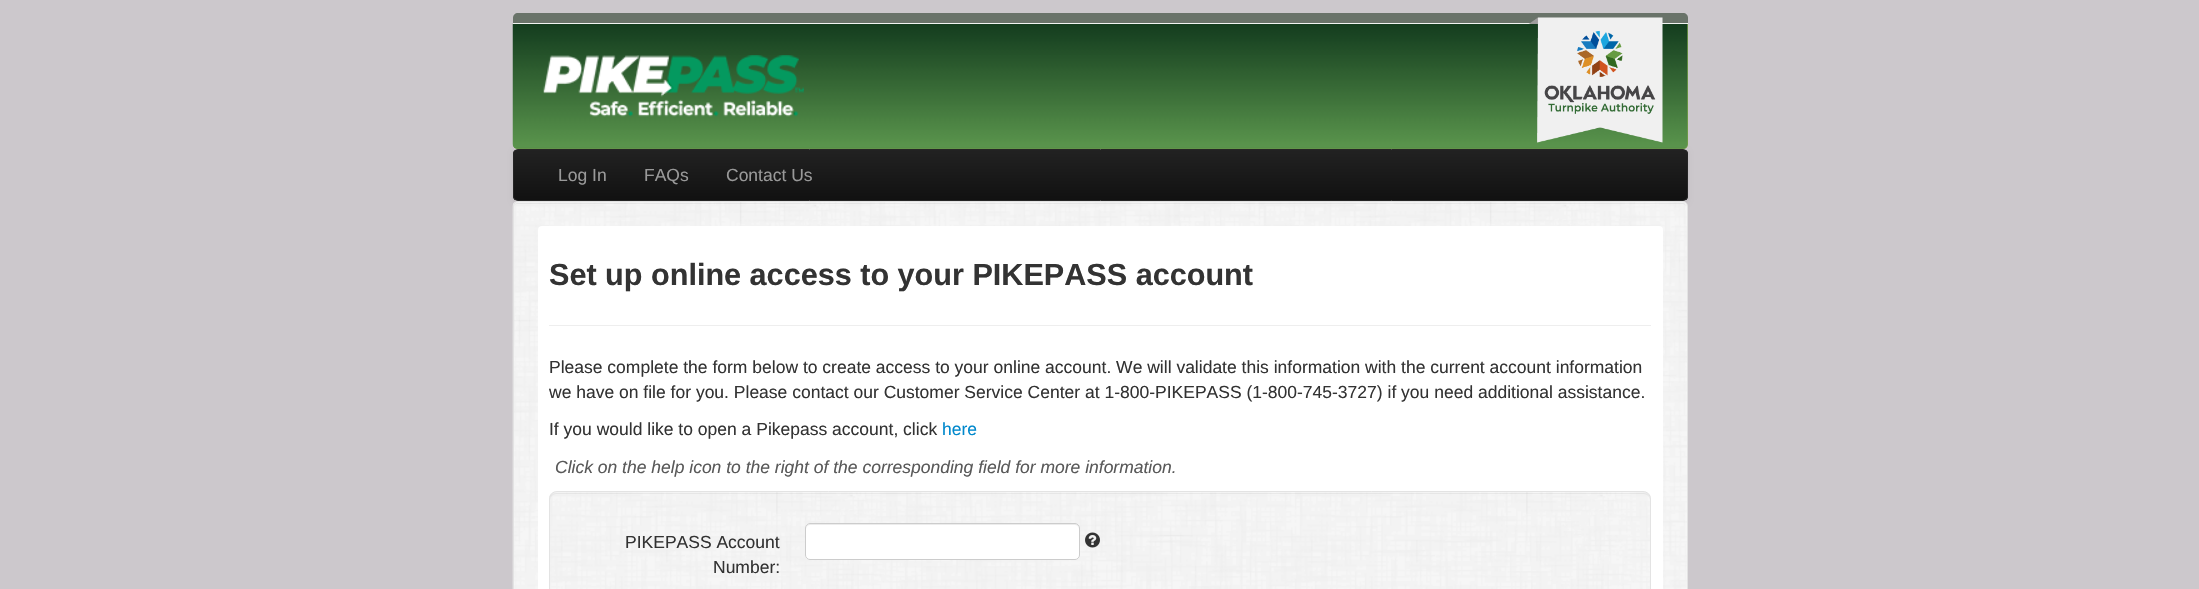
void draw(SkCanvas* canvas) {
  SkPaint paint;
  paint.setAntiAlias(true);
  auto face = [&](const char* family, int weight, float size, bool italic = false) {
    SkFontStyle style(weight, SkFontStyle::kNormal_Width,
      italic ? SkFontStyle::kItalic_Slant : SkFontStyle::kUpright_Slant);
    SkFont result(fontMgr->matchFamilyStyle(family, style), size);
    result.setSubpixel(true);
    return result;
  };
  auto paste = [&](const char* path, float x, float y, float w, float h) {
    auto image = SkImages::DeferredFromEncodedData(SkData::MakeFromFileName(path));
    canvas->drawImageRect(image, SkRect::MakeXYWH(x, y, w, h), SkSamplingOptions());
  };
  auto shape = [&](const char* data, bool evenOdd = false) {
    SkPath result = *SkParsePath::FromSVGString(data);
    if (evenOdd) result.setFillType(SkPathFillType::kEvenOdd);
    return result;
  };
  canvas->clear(0xffccc8cc);
  paint.setColor(0xff697369);
  canvas->drawPath(shape("M518 13H1683C1686 13 1688 15 1688 18V24H513V18C513 15 515 13 518 13Z"), paint);
  paint.setColor(0xffffffff);
  canvas->drawRect(SkRect::MakeXYWH(513, 23, 1175, 1), paint);
  paint.setColor(0xff759e48);
  canvas->drawPath(shape("M513 24H1688V144C1688 147 1686 149 1683 149H518C515 149 513 147 513 144Z"), paint);
  paste("img/1.png", 512, 23, 1176, 126);
  paste("img/2.png", 543, 55, 261, 62);
  paint.setColor(0x12000000);
  paint.setMaskFilter(SkMaskFilter::MakeBlur(kNormal_SkBlurStyle, 2.5f));
  canvas->drawRoundRect(SkRect::MakeXYWH(513, 150, 1175, 53), 5, 5, paint);
  paint.setMaskFilter(nullptr);
  paste("img/3.png", 1528, 17, 135, 126);
  canvas->save();
  canvas->clipPath(shape("M518 149H1683C1686 149 1688 151 1688 154V196C1688 199 1686 201 1683 201H518C515 201 513 199 513 196V154C513 151 515 149 518 149Z"), true);
  {
    const SkColor colors[] = {0xff222222, 0xff111111};
    const float stops[] = {0, 1};
    const SkPoint ends[] = {{1100, 150}, {1100, 200}};
    paint.setShader(SkGradientShader::MakeLinear(ends, colors, stops, 2, SkTileMode::kClamp));
    paint.setAlpha(255);
  }
  canvas->drawRect(SkRect::MakeXYWH(513, 150, 1175, 50), paint);
  canvas->restore();
  paint.setStroke(true);
  paint.setStrokeWidth(1);
  paint.setShader(nullptr);
  paint.setColor(0xff252525);
  canvas->drawRoundRect(SkRect::MakeXYWH(513.5f, 149.5f, 1174, 51), 4.5f, 4.5f, paint);
  paste("img/4.png", 512, 201, 1175, 388);
  paint.setStroke(false);
  paint.setColor(0x0d000000);
  canvas->drawPath(shape("M518 204H1682C1685 204 1686 205 1686 208C1686 205 1685 203 1682 203H518C515 203 514 205 514 208C514 205 515 204 518 204Z"), paint);
  paint.setStroke(true);
  paint.setColor(0xffe3e3e3);
  canvas->drawRoundRect(SkRect::MakeXYWH(513.5f, 201.5f, 1174, 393), 4.5f, 4.5f, paint);
  paint.setStroke(false);
  paint.setColor(0xffffffff);
  canvas->drawRoundRect(SkRect::MakeXYWH(538, 226, 1125, 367), 4, 4, paint);
  paint.setColor(0xffeeeeee);
  canvas->drawRect(SkRect::MakeXYWH(549, 325, 1102, 1), paint);
  paste("img/5.png", 549, 491, 1102, 98);
  paint.setColor(0x0d000000);
  canvas->drawPath(shape("M556 494H1644C1647 494 1650 497 1650 500C1650 496 1648 493 1644 493H556C552 493 550 496 550 500C550 497 553 494 556 494Z"), paint);
  paint.setStroke(true);
  paint.setColor(0xffe3e3e3);
  canvas->drawRoundRect(SkRect::MakeXYWH(549.5f, 491.5f, 1101, 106), 7.5f, 7.5f, paint);
  paint.setStroke(false);
  paint.setColor(0xffffffff);
  canvas->drawRoundRect(SkRect::MakeXYWH(805, 523, 275, 37), 5, 5, paint);
  paint.setColor(0xffececec);
  canvas->drawPath(shape("M810 525H1075C1077 525 1079 527 1079 529C1079 526 1078 524 1075 524H810C807 524 806 526 806 529C806 527 808 525 810 525Z"), paint);
  paint.setStroke(true);
  paint.setColor(0xffcccccc);
  canvas->drawRoundRect(SkRect::MakeXYWH(805.5f, 523.5f, 274, 36), 4.5f, 4.5f, paint);
  paste("img/6.png", 1085, 532, 15, 16);
  auto f0 = face("Liberation Sans", 400, 17.5f);
  paint.setStroke(false);
  paint.setColor(0xff999999);
  {
    const struct { const char* s; float x, y; } items[] = {
      {"Log In", 558, 181},
      {"FAQs", 644, 181},
      {"Contact Us", 726, 181},
    };
    for (auto [s, x, y] : items) {
      canvas->drawString(s, x, y, f0, paint);
    }
  }
  auto f1 = face("Liberation Sans", 700, 30.6f);
  paint.setColor(0xff333333);
  canvas->drawString("Set up online access to your PIKEPASS account", 549, 285, f1, paint);
  {
    const struct { const char* s; float x, y; } items[] = {
      {"Please complete the form below to create access to your online account. We will validate this information with the current account information", 549, 373},
      {"we have on file for you. Please contact our Customer Service Center at 1-800-PIKEPASS (1-800-745-3727) if you need additional assistance.", 549, 398},
      {"If you would like to open a Pikepass account, click", 549, 435},
    };
    for (auto [s, x, y] : items) {
      canvas->drawString(s, x, y, f0, paint);
    }
  }
  paint.setColor(0xff0088cc);
  canvas->drawString("here", 942, 435, f0, paint);
  auto f2 = face("Liberation Sans", 400, 17.5f, true);
  paint.setColor(0xff595959);
  canvas->drawString("Click on the help icon to the right of the corresponding field for more information.", 555, 473, f2, paint);
  paint.setColor(0xff333333);
  canvas->drawString("PIKEPASS Account", 625, 548, f0, paint);
  canvas->drawString("Number:", 713, 573, f0, paint);
}
